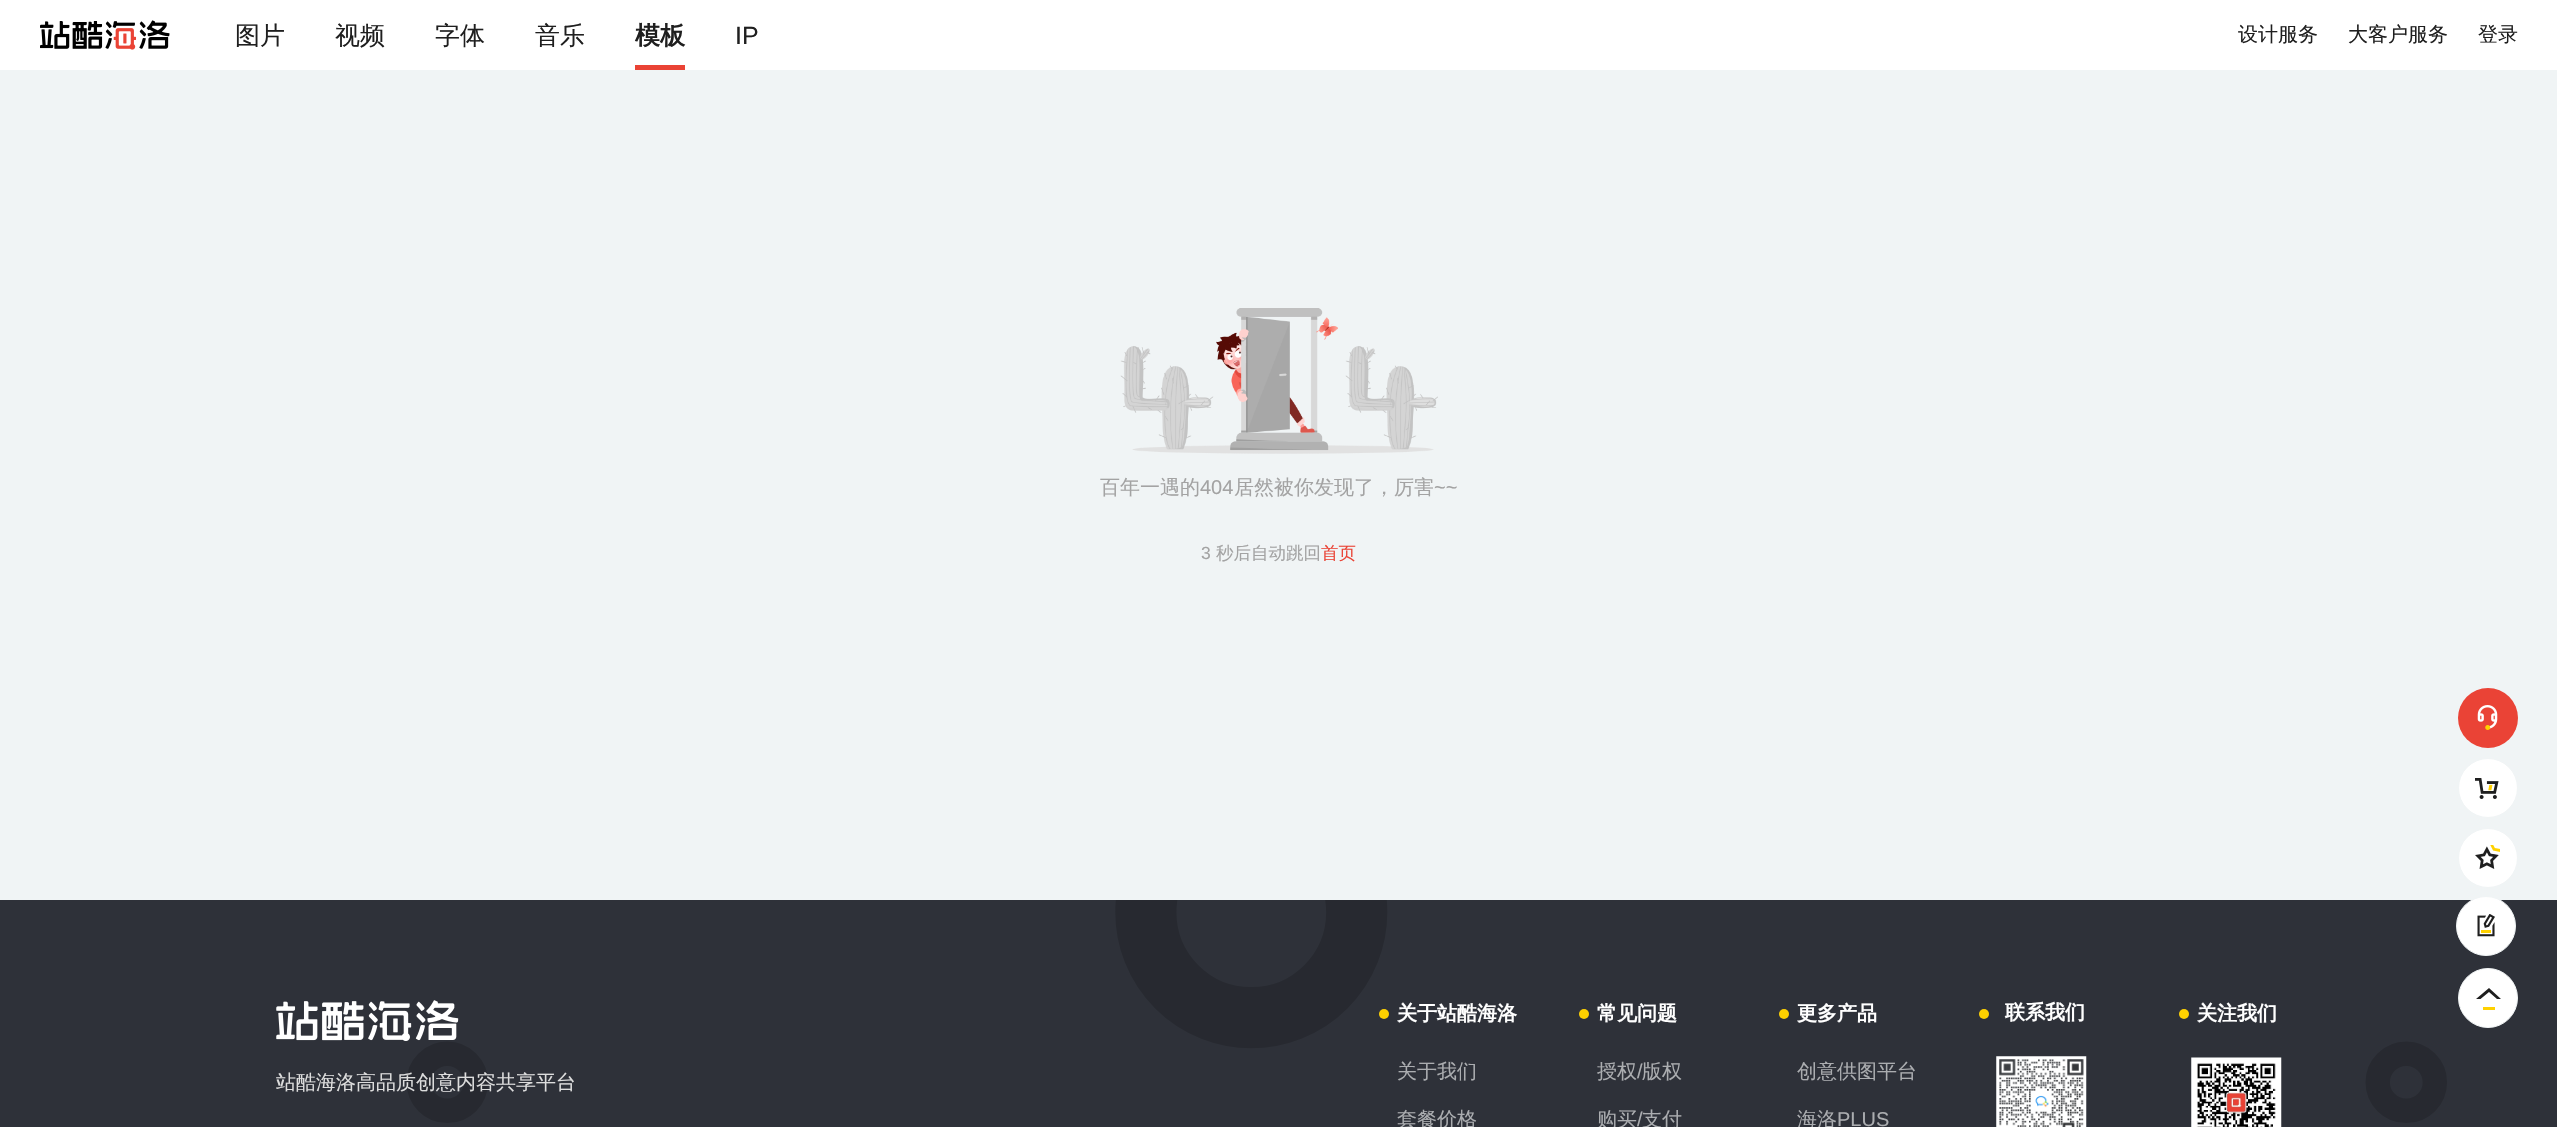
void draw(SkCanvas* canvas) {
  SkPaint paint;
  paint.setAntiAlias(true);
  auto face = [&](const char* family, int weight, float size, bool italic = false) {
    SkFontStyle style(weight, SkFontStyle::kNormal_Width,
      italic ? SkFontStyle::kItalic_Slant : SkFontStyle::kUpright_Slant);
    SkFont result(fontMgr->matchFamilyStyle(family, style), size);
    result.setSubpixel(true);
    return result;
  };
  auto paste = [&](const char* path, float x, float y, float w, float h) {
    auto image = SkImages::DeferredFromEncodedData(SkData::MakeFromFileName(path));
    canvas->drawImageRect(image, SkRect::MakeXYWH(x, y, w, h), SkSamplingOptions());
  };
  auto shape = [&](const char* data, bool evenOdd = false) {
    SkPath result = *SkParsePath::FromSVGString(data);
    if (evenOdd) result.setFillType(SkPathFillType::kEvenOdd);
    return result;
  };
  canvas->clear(0xffffffff);
  paste("img/1.png", 40, 20, 130, 30);
  paint.setColor(0xffea4335);
  canvas->drawRect(SkRect::MakeXYWH(635, 65, 50, 5), paint);
  paint.setColor(0xfff0f4f5);
  canvas->drawRect(SkRect::MakeXYWH(0, 70, 2557, 830), paint);
  paste("img/2.png", 1120, 308, 318, 146);
  paint.setColor(0xffea4336);
  canvas->drawCircle(2488, 718, 30, paint);
  paste("img/3.png", 2477, 705, 21, 25);
  paint.setColor(0xffffffff);
  canvas->drawCircle(2488, 788, 29.5f, paint);
  paint.setStroke(true);
  paint.setStrokeWidth(1);
  paint.setColor(0xfff0f4f5);
  canvas->drawCircle(2488, 788, 29.5f, paint);
  paste("img/4.png", 2475, 778, 24, 21);
  paint.setStroke(false);
  paint.setColor(0xffffffff);
  canvas->drawCircle(2488, 858, 29.5f, paint);
  paint.setStroke(true);
  paint.setColor(0xfff0f4f5);
  canvas->drawCircle(2488, 858, 29.5f, paint);
  paste("img/5.png", 2475, 845, 25, 24);
  paint.setStroke(false);
  paint.setColor(0xff2e3139);
  canvas->drawRect(SkRect::MakeXYWH(0, 900, 2557, 227), paint);
  paint.setColor(0xffffffff);
  canvas->drawCircle(2486, 926, 29.5f, paint);
  paint.setStroke(true);
  paint.setColor(0xfff0f4f5);
  canvas->drawCircle(2486, 926, 29.5f, paint);
  paste("img/6.png", 2477, 914, 18, 23);
  paint.setStroke(false);
  paint.setColor(0xffffffff);
  canvas->drawCircle(2488, 998, 29.5f, paint);
  paint.setStroke(true);
  paint.setColor(0xfff0f4f5);
  canvas->drawCircle(2488, 998, 29.5f, paint);
  paint.setStroke(false);
  paint.setColor(0xff1f1f1f);
  canvas->drawPath(shape("M2480.5 999H2476L2489 988L2501 999H2497L2489 992Z"), paint);
  paint.setColor(0xffffd100);
  canvas->drawRect(SkRect::MakeXYWH(2483, 1007, 12, 3), paint);
  paste("img/7.png", 406, 900, 2041, 223);
  paste("img/8.png", 276, 1000, 183, 41);
  canvas->drawCircle(1384, 1014, 5, paint);
  canvas->drawCircle(1584, 1014, 5, paint);
  canvas->drawCircle(1784, 1014, 5, paint);
  canvas->drawCircle(1984, 1014, 5, paint);
  paste("img/9.png", 1996, 1056, 91, 71);
  canvas->drawCircle(2184, 1014, 5, paint);
  paste("img/10.png", 2191, 1057, 91, 70);
  auto f0 = face("WenQuanYi Zen Hei", 500, 25);
  paint.setColor(0xff1f1f1f);
  {
    const struct { const char* s; float x, y; } items[] = {
      {"图片", 235, 44},
      {"视频", 335, 44},
      {"字体", 435, 44},
      {"音乐", 535, 44},
    };
    for (auto [s, x, y] : items) {
      canvas->drawString(s, x, y, f0, paint);
    }
  }
  auto f1 = face("WenQuanYi Zen Hei", 700, 25);
  canvas->drawString("模板", 635, 44, f1, paint);
  auto f2 = face("Liberation Sans", 400, 25);
  canvas->drawString("IP", 735, 44, f2, paint);
  auto f3 = face("WenQuanYi Zen Hei", 500, 20);
  {
    const struct { const char* s; float x, y; } items[] = {
      {"设计服务", 2238, 41},
      {"大客户服务", 2348, 41},
      {"登录", 2478, 41},
    };
    for (auto [s, x, y] : items) {
      canvas->drawString(s, x, y, f3, paint);
    }
  }
  paint.setColor(0xffa3a3a3);
  canvas->drawString("百年一遇的", 1100, 494, f3, paint);
  auto f4 = face("Liberation Sans", 400, 20);
  canvas->drawString("404", 1200, 494, f4, paint);
  canvas->drawString("居然被你发现了，厉害", 1234, 494, f3, paint);
  canvas->drawString("~~", 1434, 494, f4, paint);
  auto f5 = face("Liberation Sans", 400, 17.5f);
  canvas->drawString("3", 1201, 559, f5, paint);
  auto f6 = face("WenQuanYi Zen Hei", 500, 17.5f);
  canvas->drawString("秒后自动跳回", 1216, 559, f6, paint);
  paint.setColor(0xffea4335);
  canvas->drawString("首页", 1321, 559, f6, paint);
  paint.setColor(0xffdddddd);
  canvas->drawString("站酷海洛高品质创意内容共享平台", 276, 1089, f3, paint);
  auto f7 = face("WenQuanYi Zen Hei", 700, 20);
  paint.setColor(0xffffffff);
  canvas->drawString("关于站酷海洛", 1397, 1020, f7, paint);
  paint.setColor(0xffabadb0);
  canvas->drawString("关于我们", 1397, 1078, f3, paint);
  canvas->drawString("套餐价格", 1397, 1126, f3, paint);
  paint.setColor(0xffffffff);
  canvas->drawString("常见问题", 1597, 1020, f7, paint);
  paint.setColor(0xffabadb0);
  canvas->drawString("授权", 1597, 1078, f3, paint);
  canvas->drawString("/", 1637, 1078, f4, paint);
  canvas->drawString("版权", 1642, 1078, f3, paint);
  canvas->drawString("购买", 1597, 1126, f3, paint);
  canvas->drawString("/", 1637, 1126, f4, paint);
  canvas->drawString("支付", 1642, 1126, f3, paint);
  paint.setColor(0xffffffff);
  canvas->drawString("更多产品", 1797, 1020, f7, paint);
  paint.setColor(0xffabadb0);
  canvas->drawString("创意供图平台", 1797, 1078, f3, paint);
  canvas->drawString("海洛", 1797, 1126, f3, paint);
  canvas->drawString("PLUS", 1837, 1126, f4, paint);
  paint.setColor(0xffffffff);
  canvas->drawString("联系我们", 2005, 1019, f7, paint);
  canvas->drawString("关注我们", 2197, 1020, f7, paint);
}
